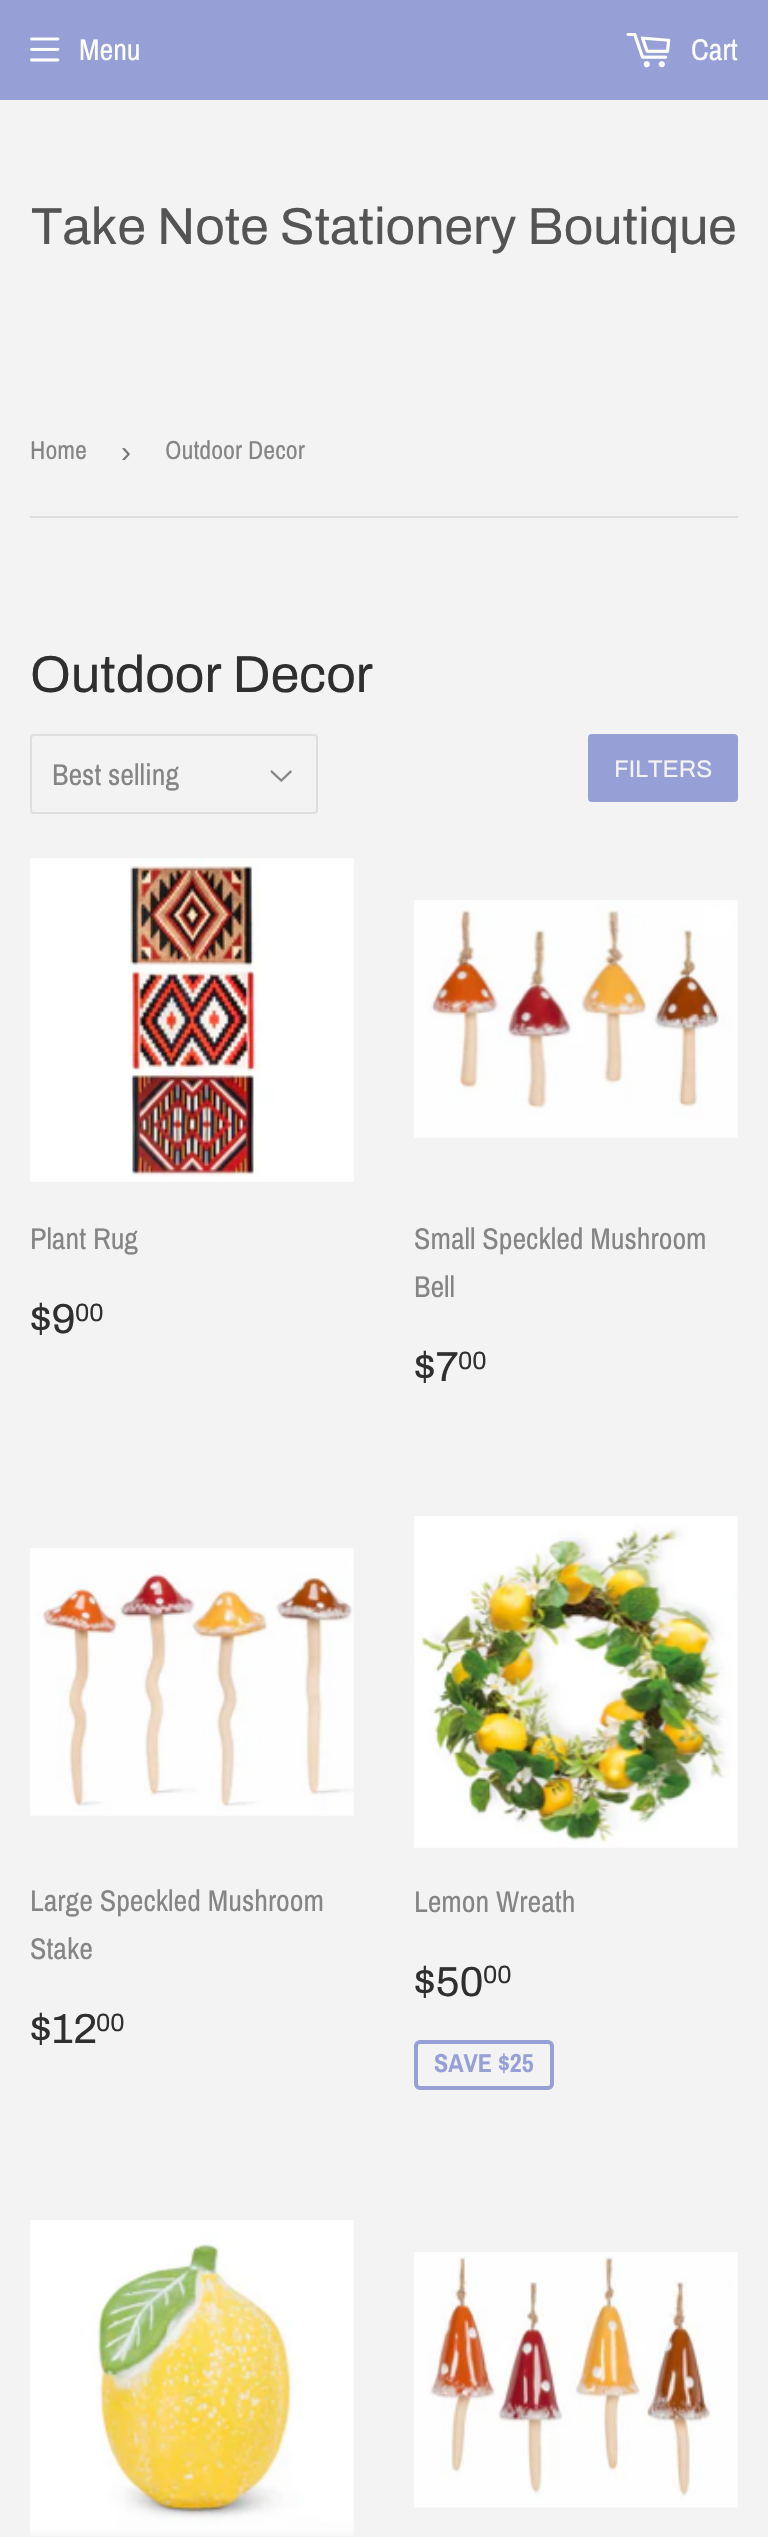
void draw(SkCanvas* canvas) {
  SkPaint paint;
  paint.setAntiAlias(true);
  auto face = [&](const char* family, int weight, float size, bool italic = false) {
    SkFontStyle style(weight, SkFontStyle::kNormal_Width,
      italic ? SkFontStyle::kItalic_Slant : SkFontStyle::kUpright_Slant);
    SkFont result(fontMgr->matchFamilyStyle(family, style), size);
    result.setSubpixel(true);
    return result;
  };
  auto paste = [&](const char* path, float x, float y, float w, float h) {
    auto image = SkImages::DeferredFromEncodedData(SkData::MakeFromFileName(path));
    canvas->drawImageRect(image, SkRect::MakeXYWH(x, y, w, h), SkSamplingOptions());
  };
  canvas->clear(0xfff3f3f3);
  paint.setColor(0xff96a0d7);
  canvas->drawRect(SkRect::MakeXYWH(0, 0, 768, 100), paint);
  paste("img/1.png", 30, 37, 30, 25);
  paste("img/2.png", 626, 33, 45, 35);
  paint.setColor(0xffdedede);
  canvas->drawRect(SkRect::MakeXYWH(30, 516, 708, 2), paint);
  paste("img/3.png", 270, 770, 22, 12);
  paint.setStroke(true);
  paint.setStrokeWidth(2);
  canvas->drawRoundRect(SkRect::MakeXYWH(31, 735, 286, 78), 3, 3, paint);
  paint.setStroke(false);
  paint.setColor(0xff96a0d7);
  canvas->drawRoundRect(SkRect::MakeXYWH(588, 734, 150, 68), 4, 4, paint);
  paste("img/4.png", 30, 858, 324, 324);
  paste("img/5.png", 414, 900, 324, 238);
  paste("img/6.png", 30, 1548, 324, 268);
  paste("img/7.png", 414, 1516, 324, 332);
  paint.setStroke(true);
  paint.setStrokeWidth(4);
  canvas->drawRoundRect(SkRect::MakeXYWH(416, 2042, 136, 46), 4, 4, paint);
  paste("img/8.png", 30, 2220, 324, 316);
  paste("img/9.png", 414, 2252, 324, 256);
  auto f0 = face("Archivo Narrow", 400, 30);
  paint.setStroke(false);
  paint.setColor(0xffffffff);
  canvas->drawString("Menu", 79, 60, f0, paint);
  canvas->drawString("Cart", 691, 60, f0, paint);
  auto f1 = face("Archivo", 400, 52);
  paint.setColor(0xff545454);
  canvas->drawString("Take Note Stationery Boutique", 31, 244, f1, paint);
  auto f2 = face("Archivo Narrow", 400, 26);
  paint.setColor(0xff858585);
  canvas->drawString("Home", 30, 459, f2, paint);
  auto f3 = face("Liberation Sans", 400, 30);
  paint.setColor(0xff767676);
  canvas->drawString("›", 121, 462, f3, paint);
  paint.setColor(0xff858585);
  canvas->drawString("Outdoor Decor", 165, 459, f2, paint);
  paint.setColor(0xff2f2f2f);
  canvas->drawString("Outdoor Decor", 30, 692, f1, paint);
  paint.setColor(0xff858585);
  canvas->drawString("Best selling", 52, 785, f0, paint);
  auto f4 = face("Archivo", 400, 24);
  paint.setColor(0xfff3f3f3);
  canvas->drawString("FILTERS", 614, 777, f4, paint);
  paint.setColor(0xff858585);
  canvas->drawString("Plant Rug", 30, 1249, f0, paint);
  auto f5 = face("Archivo", 400, 42);
  paint.setColor(0xff2f2f2f);
  canvas->drawString("$9", 30, 1333, f5, paint);
  auto f6 = face("Archivo", 400, 25);
  canvas->drawString("00", 75, 1321, f6, paint);
  paint.setColor(0xff858585);
  canvas->drawString("Small Speckled Mushroom", 414, 1249, f0, paint);
  canvas->drawString("Bell", 414, 1297, f0, paint);
  paint.setColor(0xff2f2f2f);
  canvas->drawString("$7", 414, 1381, f5, paint);
  canvas->drawString("00", 458, 1369, f6, paint);
  paint.setColor(0xff858585);
  canvas->drawString("Large Speckled Mushroom", 30, 1911, f0, paint);
  canvas->drawString("Stake", 30, 1959, f0, paint);
  paint.setColor(0xff2f2f2f);
  canvas->drawString("$12", 30, 2043, f5, paint);
  canvas->drawString("00", 96, 2031, f6, paint);
  paint.setColor(0xff858585);
  canvas->drawString("Lemon Wreath", 414, 1912, f0, paint);
  paint.setColor(0xff2f2f2f);
  canvas->drawString("$50", 414, 1996, f5, paint);
  canvas->drawString("00", 483, 1983, f6, paint);
  auto f7 = face("Archivo Narrow", 700, 26);
  paint.setColor(0xff96a0d7);
  canvas->drawString("SAVE $25", 434, 2072, f7, paint);
}
